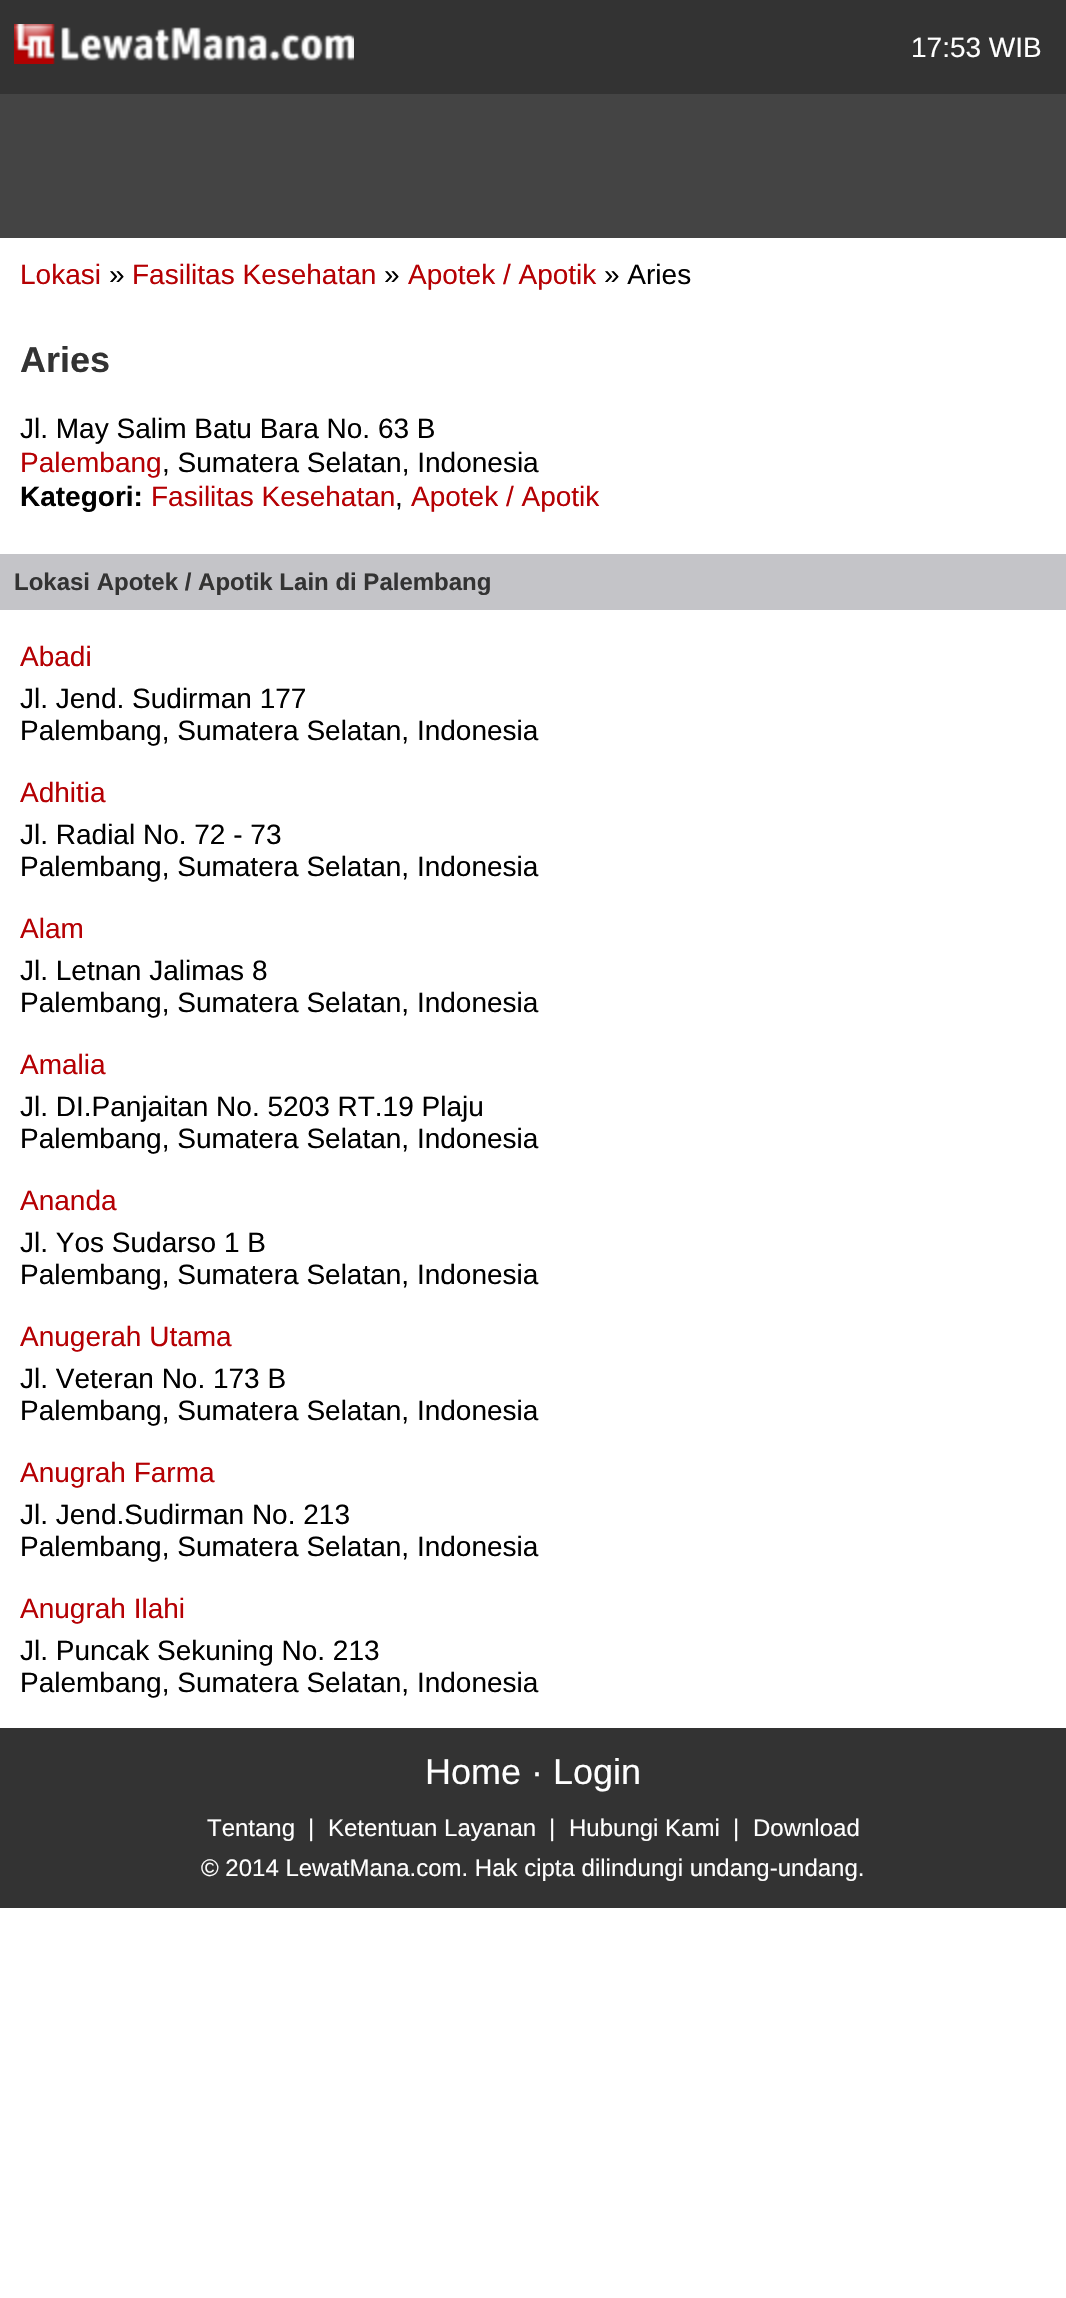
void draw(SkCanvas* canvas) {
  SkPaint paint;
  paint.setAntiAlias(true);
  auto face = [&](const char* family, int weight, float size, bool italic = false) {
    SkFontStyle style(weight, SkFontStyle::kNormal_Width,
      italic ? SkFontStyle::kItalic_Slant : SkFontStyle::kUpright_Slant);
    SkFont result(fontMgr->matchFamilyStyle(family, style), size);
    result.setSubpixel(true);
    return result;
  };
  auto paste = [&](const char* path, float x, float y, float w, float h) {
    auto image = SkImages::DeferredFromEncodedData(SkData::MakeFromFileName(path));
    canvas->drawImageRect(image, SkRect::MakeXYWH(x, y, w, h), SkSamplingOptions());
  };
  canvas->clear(0xffffffff);
  paint.setColor(0xff333333);
  canvas->drawRect(SkRect::MakeXYWH(0, 0, 1066, 94), paint);
  paste("img/1.png", 14, 24, 340, 40);
  {
    const struct { float x, y, w, h; SkColor color; } items[] = {
      {0, 94, 1066, 144, 0xff444444},
      {0, 554, 1066, 56, 0xffc4c4c8},
      {0, 1728, 1066, 180, 0xff333333},
    };
    for (auto [x, y, w, h, color] : items) {
      paint.setColor(color);
      canvas->drawRect(SkRect::MakeXYWH(x, y, w, h), paint);
    }
  }
  auto f0 = face("Liberation Sans", 400, 28);
  paint.setColor(0xffffffff);
  canvas->drawString("17:53 WIB", 911, 57, f0, paint);
  paint.setColor(0xffb50003);
  canvas->drawString("Lokasi", 20, 284, f0, paint);
  paint.setColor(0xff000000);
  canvas->drawString("»", 109, 284, f0, paint);
  paint.setColor(0xffb50003);
  canvas->drawString("Fasilitas Kesehatan", 132, 284, f0, paint);
  paint.setColor(0xff000000);
  canvas->drawString("»", 384, 284, f0, paint);
  paint.setColor(0xffb50003);
  canvas->drawString("Apotek / Apotik", 408, 284, f0, paint);
  paint.setColor(0xff000000);
  canvas->drawString("» Aries", 604, 284, f0, paint);
  auto f1 = face("Liberation Sans", 700, 36);
  paint.setColor(0xff333333);
  canvas->drawString("Aries", 20, 372, f1, paint);
  paint.setColor(0xff000000);
  canvas->drawString("Jl. May Salim Batu Bara No. 63 B", 20, 438, f0, paint);
  paint.setColor(0xffb50003);
  canvas->drawString("Palembang", 20, 472, f0, paint);
  paint.setColor(0xff000000);
  canvas->drawString(", Sumatera Selatan, Indonesia", 162, 472, f0, paint);
  auto f2 = face("Liberation Sans", 700, 28);
  canvas->drawString("Kategori:", 20, 506, f2, paint);
  paint.setColor(0xffb50003);
  canvas->drawString("Fasilitas Kesehatan", 151, 506, f0, paint);
  paint.setColor(0xff000000);
  canvas->drawString(",", 395, 506, f0, paint);
  paint.setColor(0xffb50003);
  canvas->drawString("Apotek / Apotik", 411, 506, f0, paint);
  auto f3 = face("Liberation Sans", 700, 24);
  paint.setColor(0xff333333);
  canvas->drawString("Lokasi Apotek / Apotik Lain di Palembang", 14, 590, f3, paint);
  paint.setColor(0xffb50003);
  canvas->drawString("Abadi", 20, 666, f0, paint);
  paint.setColor(0xff000000);
  canvas->drawString("Jl. Jend. Sudirman 177", 20, 708, f0, paint);
  canvas->drawString("Palembang, Sumatera Selatan, Indonesia", 20, 740, f0, paint);
  paint.setColor(0xffb50003);
  canvas->drawString("Adhitia", 20, 802, f0, paint);
  paint.setColor(0xff000000);
  canvas->drawString("Jl. Radial No. 72 - 73", 20, 844, f0, paint);
  canvas->drawString("Palembang, Sumatera Selatan, Indonesia", 20, 876, f0, paint);
  paint.setColor(0xffb50003);
  canvas->drawString("Alam", 20, 938, f0, paint);
  paint.setColor(0xff000000);
  canvas->drawString("Jl. Letnan Jalimas 8", 20, 980, f0, paint);
  canvas->drawString("Palembang, Sumatera Selatan, Indonesia", 20, 1012, f0, paint);
  paint.setColor(0xffb50003);
  canvas->drawString("Amalia", 20, 1074, f0, paint);
  paint.setColor(0xff000000);
  canvas->drawString("Jl. DI.Panjaitan No. 5203 RT.19 Plaju", 20, 1116, f0, paint);
  canvas->drawString("Palembang, Sumatera Selatan, Indonesia", 20, 1148, f0, paint);
  paint.setColor(0xffb50003);
  canvas->drawString("Ananda", 20, 1210, f0, paint);
  paint.setColor(0xff000000);
  canvas->drawString("Jl. Yos Sudarso 1 B", 20, 1252, f0, paint);
  canvas->drawString("Palembang, Sumatera Selatan, Indonesia", 20, 1284, f0, paint);
  paint.setColor(0xffb50003);
  canvas->drawString("Anugerah Utama", 20, 1346, f0, paint);
  paint.setColor(0xff000000);
  canvas->drawString("Jl. Veteran No. 173 B", 20, 1388, f0, paint);
  canvas->drawString("Palembang, Sumatera Selatan, Indonesia", 20, 1420, f0, paint);
  paint.setColor(0xffb50003);
  canvas->drawString("Anugrah Farma", 20, 1482, f0, paint);
  paint.setColor(0xff000000);
  canvas->drawString("Jl. Jend.Sudirman No. 213", 20, 1524, f0, paint);
  canvas->drawString("Palembang, Sumatera Selatan, Indonesia", 20, 1556, f0, paint);
  paint.setColor(0xffb50003);
  canvas->drawString("Anugrah Ilahi", 20, 1618, f0, paint);
  paint.setColor(0xff000000);
  canvas->drawString("Jl. Puncak Sekuning No. 213", 20, 1660, f0, paint);
  canvas->drawString("Palembang, Sumatera Selatan, Indonesia", 20, 1692, f0, paint);
  auto f4 = face("Liberation Sans", 400, 36);
  paint.setColor(0xffffffff);
  canvas->drawString("Home · Login", 425, 1784, f4, paint);
  auto f5 = face("Liberation Sans", 400, 24);
  {
    const struct { const char* s; float x, y; } items[] = {
      {"Tentang", 207, 1836},
      {"|", 308, 1836},
      {"Ketentuan Layanan", 328, 1836},
      {"|", 549, 1836},
      {"Hubungi Kami", 569, 1836},
      {"|", 733, 1836},
      {"Download", 753, 1836},
      {"© 2014 LewatMana.com. Hak cipta dilindungi undang-undang.", 201, 1876},
    };
    for (auto [s, x, y] : items) {
      canvas->drawString(s, x, y, f5, paint);
    }
  }
}
